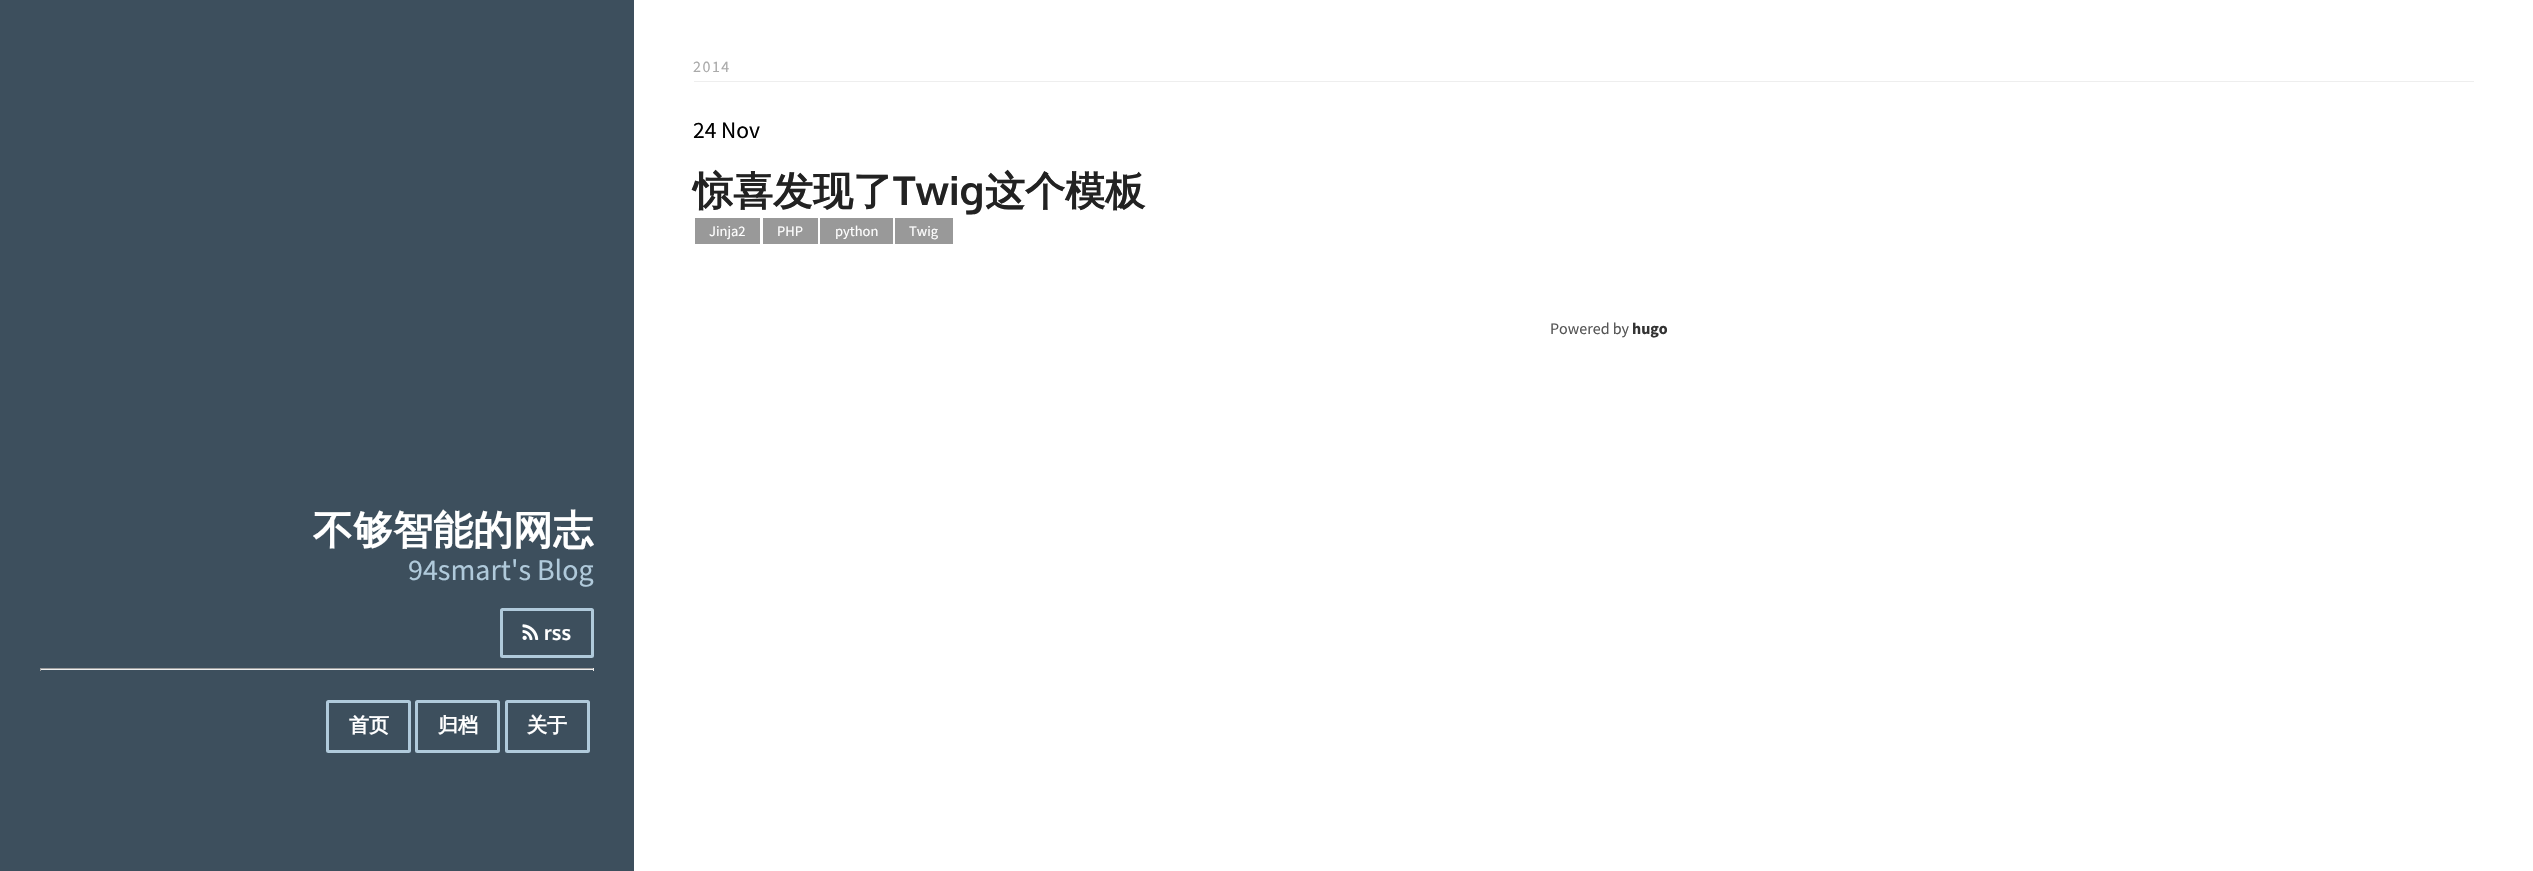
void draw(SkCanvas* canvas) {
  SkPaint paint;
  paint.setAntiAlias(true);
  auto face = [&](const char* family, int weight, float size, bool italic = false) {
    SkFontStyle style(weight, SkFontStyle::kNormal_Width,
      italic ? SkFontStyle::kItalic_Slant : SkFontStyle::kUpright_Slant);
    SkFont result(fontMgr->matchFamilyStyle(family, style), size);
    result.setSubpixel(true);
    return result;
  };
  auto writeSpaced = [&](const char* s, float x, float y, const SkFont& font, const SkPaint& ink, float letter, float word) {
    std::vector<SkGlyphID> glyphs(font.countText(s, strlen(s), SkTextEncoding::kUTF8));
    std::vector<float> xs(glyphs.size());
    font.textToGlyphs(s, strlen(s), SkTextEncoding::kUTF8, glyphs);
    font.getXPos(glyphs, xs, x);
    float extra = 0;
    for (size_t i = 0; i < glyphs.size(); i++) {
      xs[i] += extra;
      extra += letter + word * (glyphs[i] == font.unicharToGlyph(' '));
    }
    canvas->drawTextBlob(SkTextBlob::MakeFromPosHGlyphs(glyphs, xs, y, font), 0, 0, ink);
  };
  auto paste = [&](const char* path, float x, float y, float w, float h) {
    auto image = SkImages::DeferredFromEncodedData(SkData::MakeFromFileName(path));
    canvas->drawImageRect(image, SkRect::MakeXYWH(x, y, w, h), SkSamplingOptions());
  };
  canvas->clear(0xffffffff);
  {
    const struct { float x, y, w, h; SkColor color; } items[] = {
      {694, 81, 1780, 1, 0xffeeeeee},
      {695, 218, 65, 26, 0xff999999},
      {763, 218, 55, 26, 0xff999999},
      {820, 218, 73, 26, 0xff999999},
      {895, 218, 58, 26, 0xff999999},
      {0, 0, 634, 871, 0xff3d4f5d},
    };
    for (auto [x, y, w, h, color] : items) {
      paint.setColor(color);
      canvas->drawRect(SkRect::MakeXYWH(x, y, w, h), paint);
    }
  }
  paint.setStroke(true);
  paint.setStrokeWidth(3);
  paint.setColor(0xffb0cadb);
  canvas->drawRoundRect(SkRect::MakeXYWH(501.5f, 609.5f, 91, 47), 1, 1, paint);
  paste("img/1.png", 522, 624, 17, 16);
  paint.setStroke(false);
  {
    const struct { float x, y, w, h; SkColor color; } items[] = {
      {40, 668, 554, 1, 0xff9f9f9f},
      {593, 668, 1, 3, 0xffeeeeee},
      {40, 669, 554, 1, 0xffeeeeee},
      {40, 668, 1, 3, 0xff9f9f9f},
    };
    for (auto [x, y, w, h, color] : items) {
      paint.setColor(color);
      canvas->drawRect(SkRect::MakeXYWH(x, y, w, h), paint);
    }
  }
  paint.setStroke(true);
  paint.setColor(0xffb0cadb);
  canvas->drawRoundRect(SkRect::MakeXYWH(327.5f, 701.5f, 82, 50), 1, 1, paint);
  canvas->drawRoundRect(SkRect::MakeXYWH(416.5f, 701.5f, 82, 50), 1, 1, paint);
  canvas->drawRoundRect(SkRect::MakeXYWH(506.5f, 701.5f, 82, 50), 1, 1, paint);
  auto f0 = face("Source Sans Pro", 400, 16);
  paint.setStroke(false);
  paint.setColor(0xffaaaaaa);
  writeSpaced("2014", 693, 72, f0, paint, 1.5f, 0);
  auto f1 = face("Source Sans Pro", 400, 23.5f);
  paint.setColor(0xff000000);
  canvas->drawString("24 Nov", 693, 138, f1, paint);
  auto f2 = face("WenQuanYi Zen Hei", 700, 40);
  paint.setColor(0xff222222);
  canvas->drawString("惊喜发现了", 693, 205, f2, paint);
  auto f3 = face("Oxygen", 700, 40);
  canvas->drawString("Twig", 893, 205, f3, paint);
  canvas->drawString("这个模板", 985, 205, f2, paint);
  auto f4 = face("Source Sans Pro", 400, 14.5f);
  paint.setColor(0xffffffff);
  {
    const struct { const char* s; float x, y; } items[] = {
      {"Jinja2", 709, 236},
      {"PHP", 777, 236},
      {"python", 835, 236},
      {"Twig", 909, 236},
    };
    for (auto [s, x, y] : items) {
      canvas->drawString(s, x, y, f4, paint);
    }
  }
  paint.setColor(0xff555555);
  canvas->drawString("Powered by", 1550, 334, f0, paint);
  auto f5 = face("Source Sans Pro", 700, 16);
  paint.setColor(0xff333333);
  canvas->drawString("hugo", 1632, 334, f5, paint);
  paint.setColor(0xffffffff);
  canvas->drawString("不够智能的网志", 313, 544, f2, paint);
  auto f6 = face("Source Sans Pro", 400, 30);
  paint.setColor(0xffb0cadb);
  canvas->drawString("94smart's Blog", 408, 580, f6, paint);
  auto f7 = face("Oxygen", 700, 20);
  paint.setColor(0xffffffff);
  canvas->drawString("rss", 544, 640, f7, paint);
  auto f8 = face("WenQuanYi Zen Hei", 700, 20);
  {
    const struct { const char* s; float x, y; } items[] = {
      {"首页", 349, 732},
      {"归档", 438, 732},
      {"关于", 527, 732},
    };
    for (auto [s, x, y] : items) {
      canvas->drawString(s, x, y, f8, paint);
    }
  }
}
